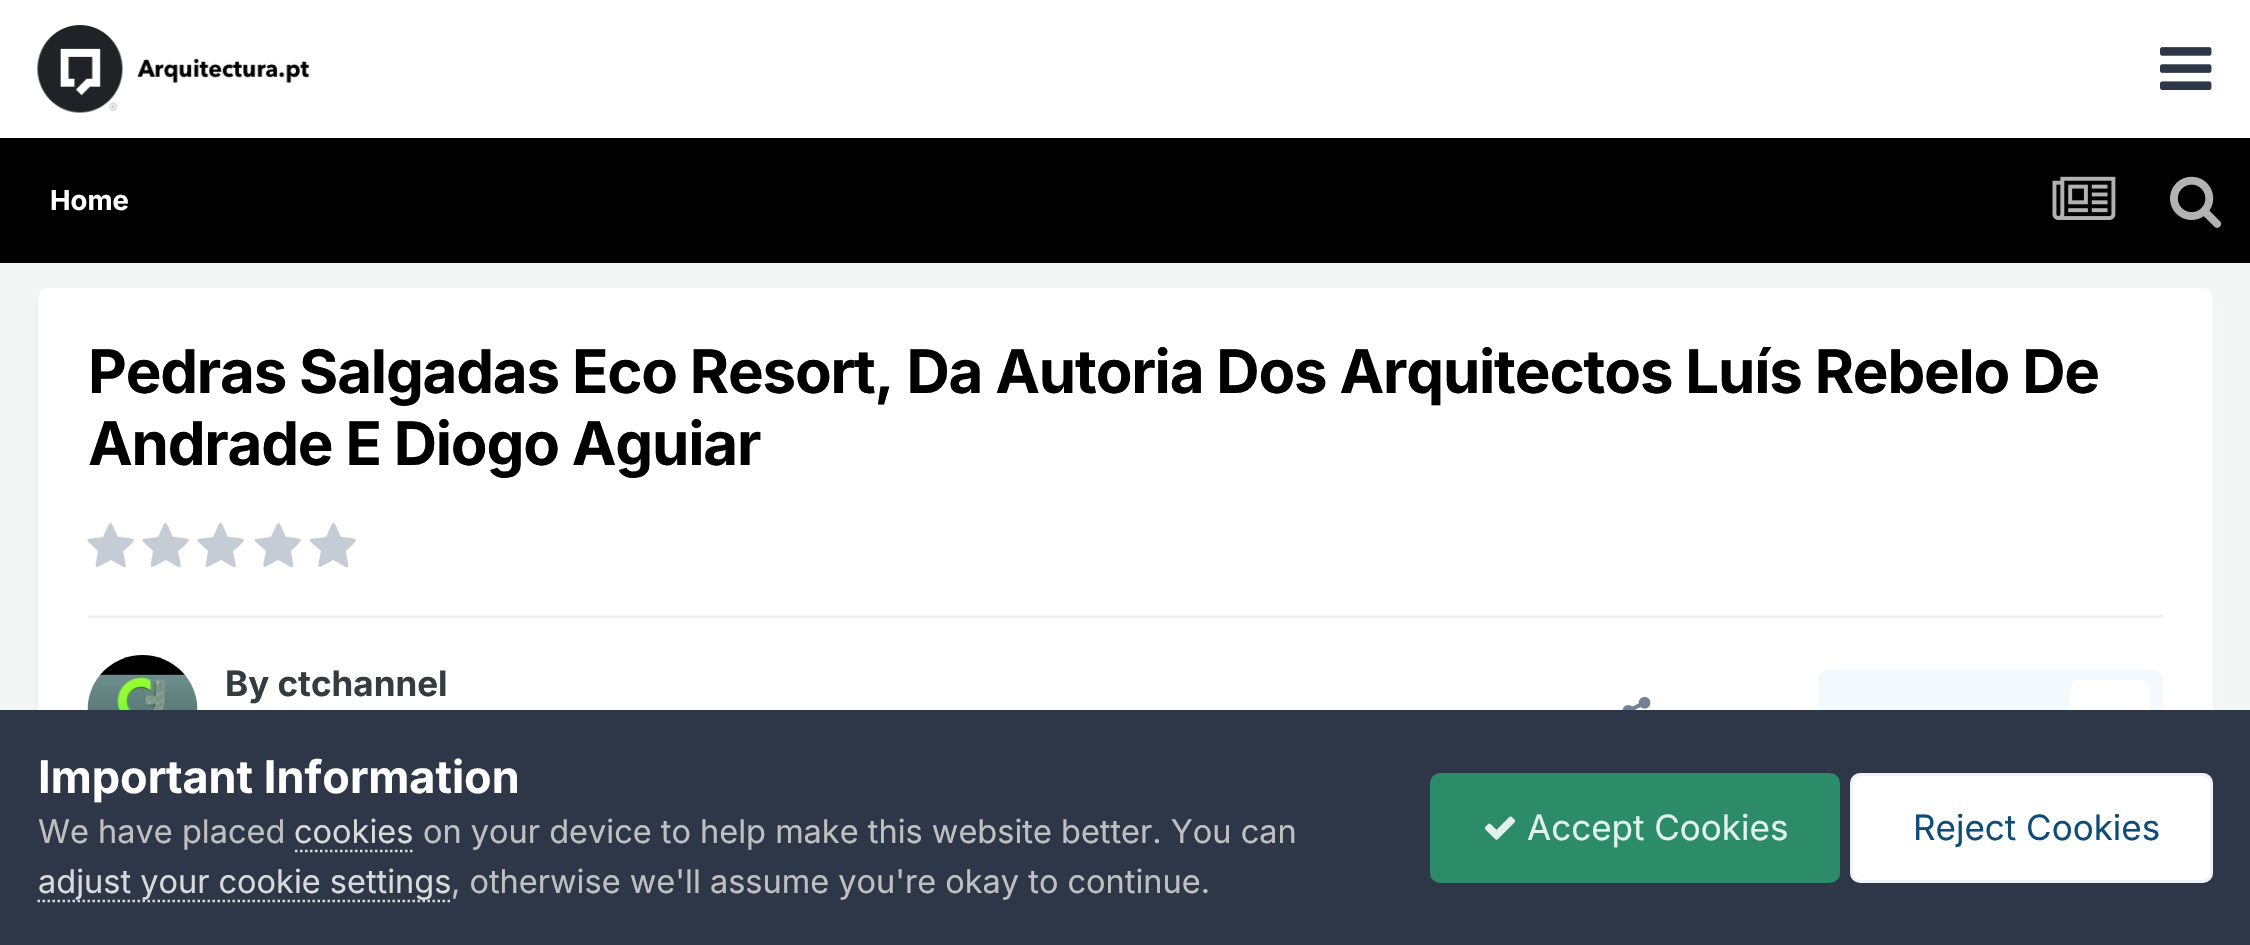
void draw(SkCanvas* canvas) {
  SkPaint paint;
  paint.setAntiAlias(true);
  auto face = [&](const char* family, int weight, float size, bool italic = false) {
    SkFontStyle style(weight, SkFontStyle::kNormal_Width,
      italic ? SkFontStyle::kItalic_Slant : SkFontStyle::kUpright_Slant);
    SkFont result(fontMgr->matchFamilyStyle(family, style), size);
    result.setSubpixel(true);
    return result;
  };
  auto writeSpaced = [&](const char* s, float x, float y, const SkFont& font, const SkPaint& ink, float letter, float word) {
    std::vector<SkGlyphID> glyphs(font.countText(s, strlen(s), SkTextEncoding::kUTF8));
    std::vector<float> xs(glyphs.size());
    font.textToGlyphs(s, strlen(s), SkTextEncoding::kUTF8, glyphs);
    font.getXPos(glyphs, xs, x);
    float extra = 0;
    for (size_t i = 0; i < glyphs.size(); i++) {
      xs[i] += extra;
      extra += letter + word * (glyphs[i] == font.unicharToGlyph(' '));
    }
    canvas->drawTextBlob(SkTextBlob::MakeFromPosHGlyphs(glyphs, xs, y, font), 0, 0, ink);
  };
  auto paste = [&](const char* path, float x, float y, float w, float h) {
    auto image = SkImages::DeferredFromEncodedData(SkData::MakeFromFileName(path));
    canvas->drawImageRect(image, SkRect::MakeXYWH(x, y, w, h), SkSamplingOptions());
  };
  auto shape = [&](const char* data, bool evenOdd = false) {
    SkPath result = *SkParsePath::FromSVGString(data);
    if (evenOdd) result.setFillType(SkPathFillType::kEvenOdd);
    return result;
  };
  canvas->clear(0xfff3f6f4);
  paint.setColor(0xffffffff);
  canvas->drawRect(SkRect::MakeXYWH(0, 0, 2250, 138), paint);
  paste("img/1.png", 37, 25, 273, 88);
  paste("img/2.png", 2160, 47, 52, 43);
  paint.setColor(0xff000000);
  canvas->drawRect(SkRect::MakeXYWH(0, 138, 2250, 125), paint);
  paste("img/3.png", 2052, 176, 64, 44);
  paste("img/4.png", 2170, 176, 52, 52);
  paint.setColor(0x1a2d3748);
  paint.setMaskFilter(SkMaskFilter::MakeBlur(kNormal_SkBlurStyle, 5));
  canvas->drawRoundRect(SkRect::MakeXYWH(40, 295, 2170, 523), 8, 8, paint);
  paint.setMaskFilter(nullptr);
  paint.setColor(0xffffffff);
  canvas->drawRoundRect(SkRect::MakeXYWH(38, 288, 2175, 527), 10, 10, paint);
  paint.setColor(0xffc6ccd5);
  canvas->drawPath(shape("M134 540C134 542 125 550 123 551C127 572 129 570 111 560C92 570 95 571 98 551C84 537 82 540 103 537C112 518 109 518 118 537C121 537 134 538 134 540Z"), paint);
  canvas->drawPath(shape("M189 540C189 542 180 550 178 551C182 572 184 570 166 560C147 570 150 571 153 551C139 537 137 540 158 537C167 518 164 518 173 537C176 537 189 538 189 540Z"), paint);
  canvas->drawPath(shape("M244 540C244 542 235 550 233 551C237 572 239 570 221 560C202 570 205 571 208 551C194 537 192 540 213 537C222 518 219 518 228 537C231 537 244 538 244 540Z"), paint);
  canvas->drawPath(shape("M301 540C301 542 292 550 291 551C294 572 297 570 278 560C260 570 262 571 266 551C251 537 249 540 271 537C280 518 277 518 286 537C288 537 301 538 301 540Z"), paint);
  canvas->drawPath(shape("M356 540C356 542 347 550 346 551C349 572 352 570 333 560C315 570 317 571 321 551C306 537 304 540 326 537C335 518 332 518 341 537C343 537 356 538 356 540Z"), paint);
  paint.setColor(0xffefeff0);
  canvas->drawRect(SkRect::MakeXYWH(88, 615, 2075, 3), paint);
  paste("img/5.png", 87, 655, 111, 55);
  paste("img/6.png", 1622, 697, 29, 13);
  paint.setColor(0xfff4f9fd);
  canvas->drawRoundRect(SkRect::MakeXYWH(1818, 670, 345, 83), 10, 10, paint);
  paint.setColor(0xffffffff);
  canvas->drawRoundRect(SkRect::MakeXYWH(2070, 680, 80, 60), 10, 10, paint);
  paint.setColor(0xff2d3748);
  canvas->drawRect(SkRect::MakeXYWH(0, 710, 2250, 235), paint);
  paint.setStroke(true);
  paint.setStrokeWidth(2.5f);
  paint.setColor(0xffdadada);
  paint.setPathEffect(SkDashPathEffect::Make({{2.5f, 2.5f}}, 0));
  canvas->drawPath(shape("M295 851H412.5"), paint);
  paint.setPathEffect(nullptr);
  paint.setPathEffect(SkDashPathEffect::Make({{2.5f, 2.5f}}, 0));
  canvas->drawPath(shape("M37.5 901H450"), paint);
  paint.setPathEffect(nullptr);
  paint.setStroke(false);
  paint.setColor(0xff2c8c69);
  canvas->drawRoundRect(SkRect::MakeXYWH(1430, 773, 410, 110), 10, 10, paint);
  paste("img/7.png", 1484, 816, 32, 24);
  paint.setColor(0xffffffff);
  canvas->drawRoundRect(SkRect::MakeXYWH(1850, 773, 363, 110), 10, 10, paint);
  paint.setStroke(true);
  paint.setStrokeWidth(3);
  paint.setColor(0x120e4c79);
  canvas->drawRoundRect(SkRect::MakeXYWH(1851.5f, 774.5f, 360, 107), 8.5f, 8.5f, paint);
  auto f0 = face("Inter", 700, 27.5f);
  paint.setStroke(false);
  paint.setColor(0xffffffff);
  canvas->drawString("Home", 50, 210, f0, paint);
  auto f1 = face("Inter", 700, 60);
  paint.setColor(0xff000000);
  writeSpaced("Pedras Salgadas Eco Resort, Da Autoria Dos Arquitectos Luís Rebelo De", 88, 393, f1, paint, -1.2f, 0);
  writeSpaced("Andrade E Diogo Aguiar", 88, 465, f1, paint, -1.2f, 0);
  auto f2 = face("Inter", 700, 35);
  paint.setColor(0xff353c41);
  canvas->drawString("By ctchannel", 225, 696, f2, paint);
  auto f3 = face("Inter", 700, 45);
  paint.setColor(0xffffffff);
  canvas->drawString("Important Information", 38, 793, f3, paint);
  auto f4 = face("Inter", 400, 32.5f);
  paint.setColor(0xffc0c0c0);
  canvas->drawString("We have placed", 38, 843, f4, paint);
  paint.setColor(0xffdadada);
  canvas->drawString("cookies", 294, 843, f4, paint);
  paint.setColor(0xffc0c0c0);
  canvas->drawString("on your device to help make this website better. You can", 423, 843, f4, paint);
  paint.setColor(0xffdadada);
  canvas->drawString("adjust your cookie settings", 38, 893, f4, paint);
  paint.setColor(0xffc0c0c0);
  canvas->drawString(", otherwise we'll assume you're okay to continue.", 451, 893, f4, paint);
  auto f5 = face("Inter", 400, 35);
  paint.setColor(0xffe3f3ec);
  canvas->drawString("Accept Cookies", 1527, 840, f5, paint);
  paint.setColor(0xff0e4c79);
  canvas->drawString("Reject Cookies", 1913, 840, f5, paint);
}
